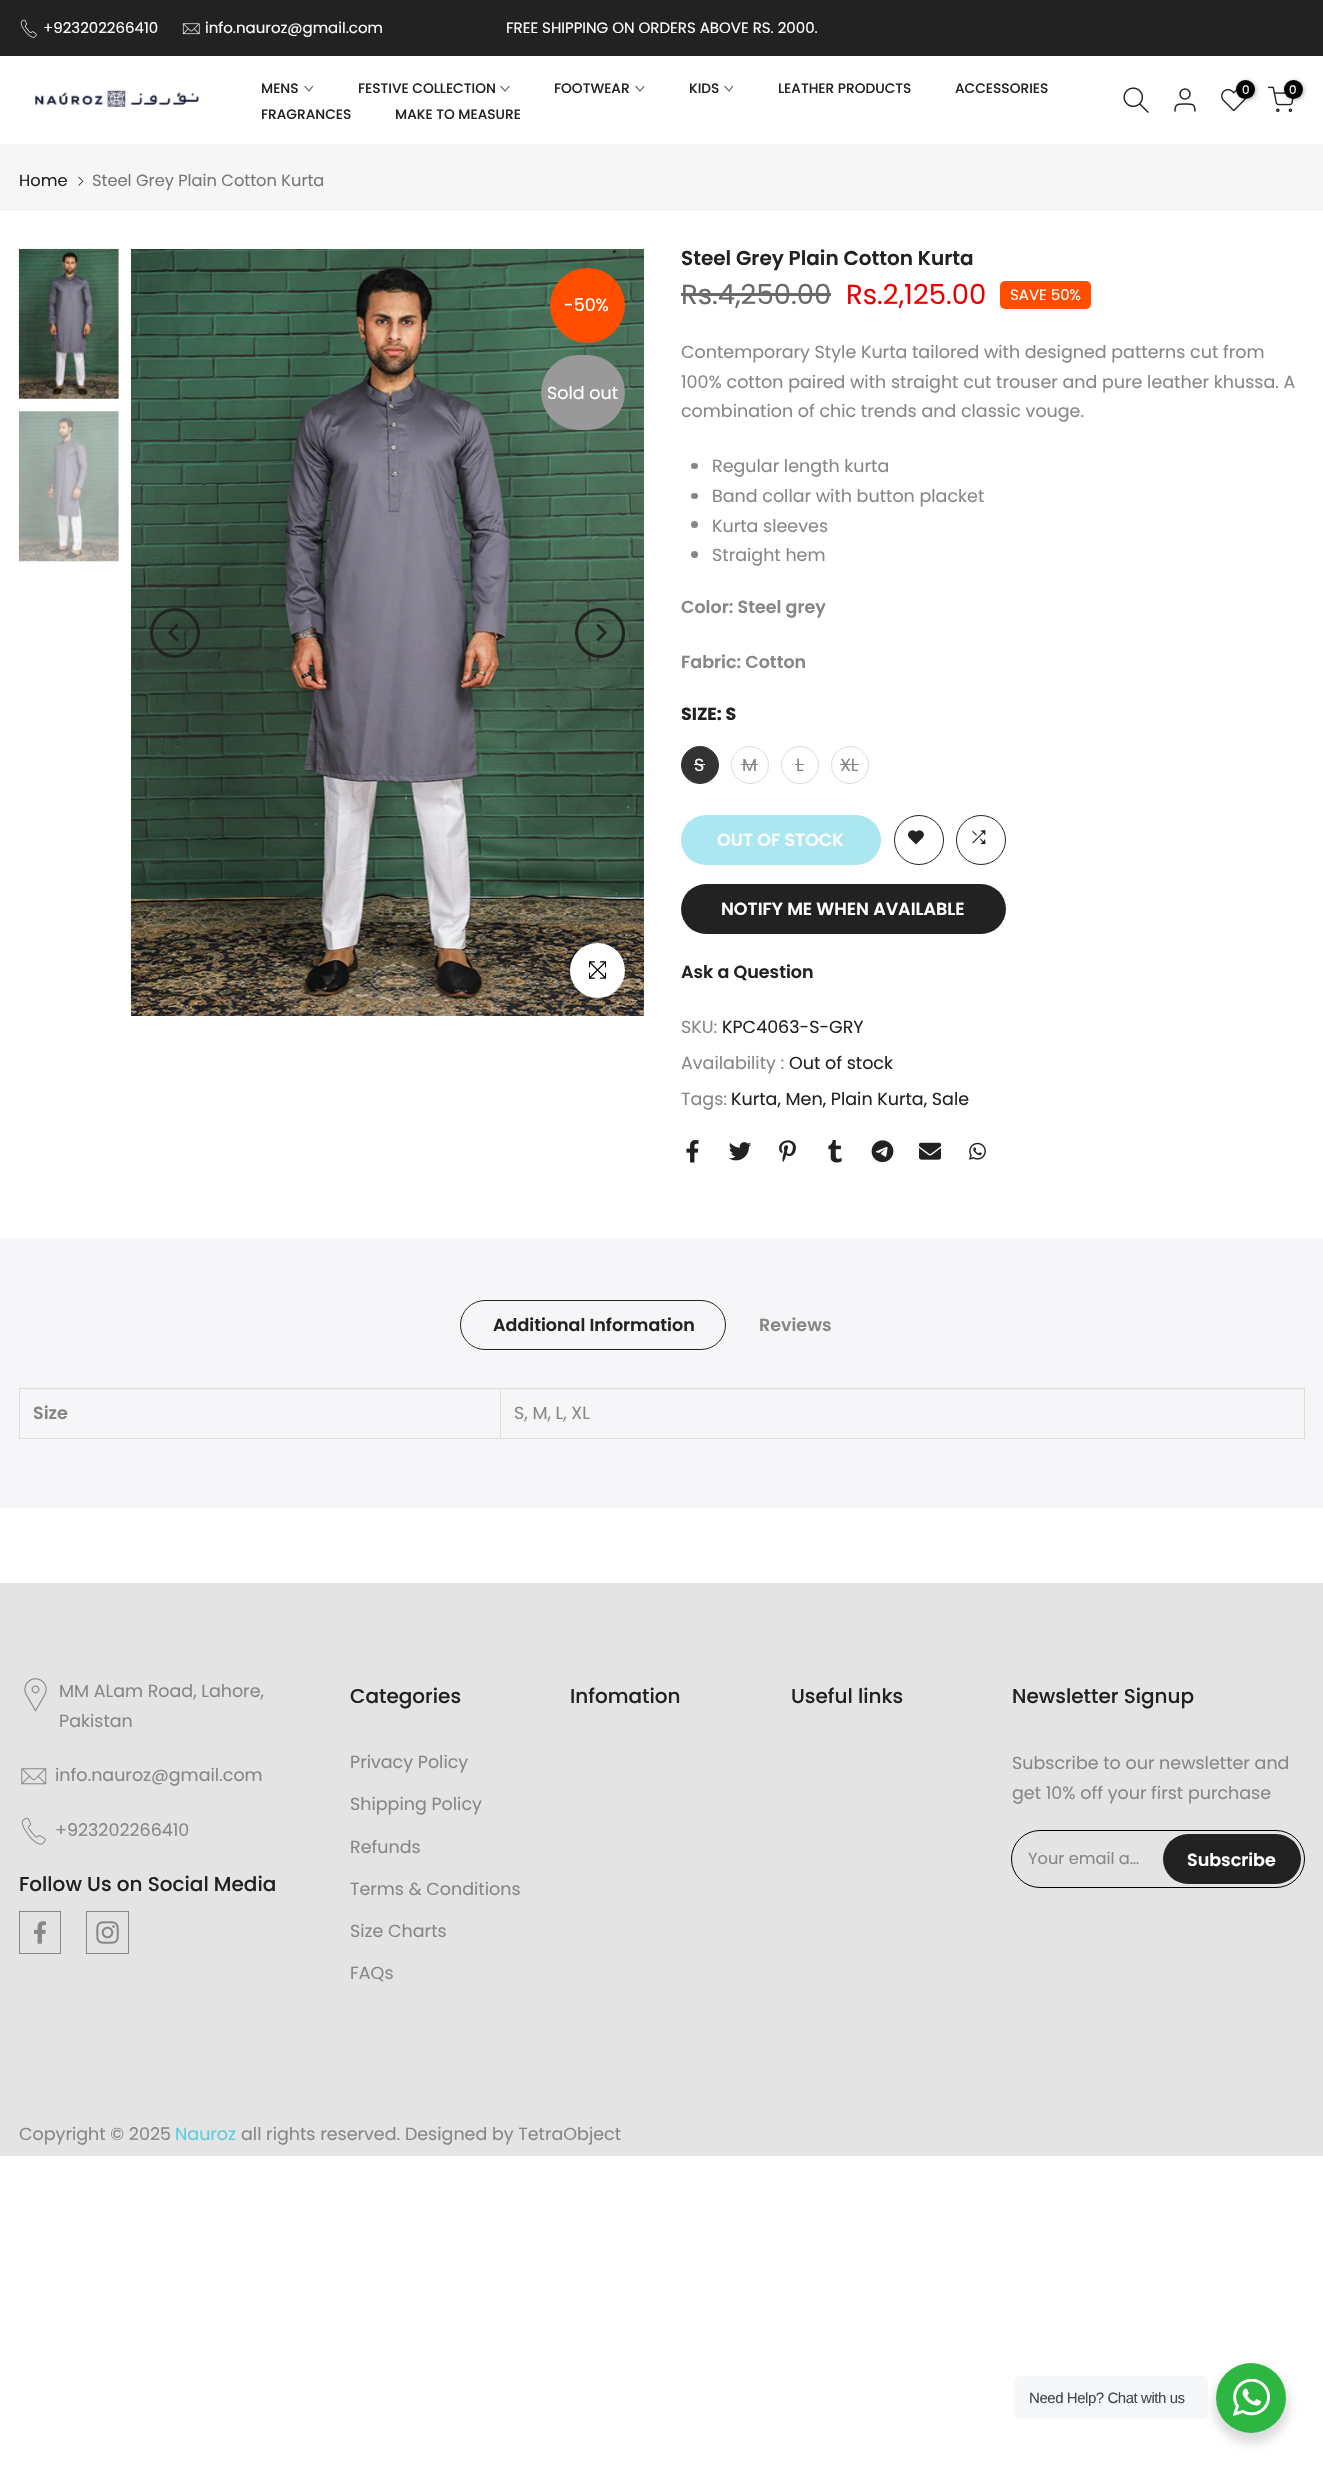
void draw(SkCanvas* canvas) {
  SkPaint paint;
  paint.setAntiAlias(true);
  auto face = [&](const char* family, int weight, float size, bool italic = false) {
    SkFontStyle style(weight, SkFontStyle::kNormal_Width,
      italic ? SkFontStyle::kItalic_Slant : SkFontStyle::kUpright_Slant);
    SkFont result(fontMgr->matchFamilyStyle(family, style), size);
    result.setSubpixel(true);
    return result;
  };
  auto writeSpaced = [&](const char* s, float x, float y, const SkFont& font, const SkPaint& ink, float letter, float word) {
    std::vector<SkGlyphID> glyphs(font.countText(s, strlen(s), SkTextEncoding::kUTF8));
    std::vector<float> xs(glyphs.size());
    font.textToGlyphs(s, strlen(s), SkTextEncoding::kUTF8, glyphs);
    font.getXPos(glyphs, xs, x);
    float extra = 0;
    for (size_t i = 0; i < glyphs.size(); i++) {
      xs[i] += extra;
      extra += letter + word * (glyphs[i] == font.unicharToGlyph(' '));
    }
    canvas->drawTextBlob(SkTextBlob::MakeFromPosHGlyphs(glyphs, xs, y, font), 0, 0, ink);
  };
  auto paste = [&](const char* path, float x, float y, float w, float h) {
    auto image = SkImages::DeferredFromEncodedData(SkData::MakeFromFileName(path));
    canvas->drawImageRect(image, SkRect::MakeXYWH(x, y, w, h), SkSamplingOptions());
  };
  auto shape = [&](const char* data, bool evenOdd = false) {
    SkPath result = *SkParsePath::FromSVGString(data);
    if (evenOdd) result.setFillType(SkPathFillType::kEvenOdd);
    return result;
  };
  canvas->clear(0xffffffff);
  paint.setColor(0xff222222);
  canvas->drawRect(SkRect::MakeXYWH(0, 0, 1323, 56), paint);
  paste("img/1.png", 20, 19, 17, 19);
  paste("img/2.png", 182, 23, 18, 12);
  paint.setStroke(true);
  paint.setStrokeWidth(1.1f);
  paint.setStrokeCap(SkPaint::kSquare_Cap);
  paint.setColor(0xff4e4e4e);
  canvas->drawPath(shape("M312.5 86.5L309 91L305 86.5"), paint);
  canvas->drawPath(shape("M509 86.5L505 91L501 86.5"), paint);
  canvas->drawPath(shape("M644 86.5L640 91L636 86.5"), paint);
  canvas->drawPath(shape("M732.5 86.5L729 91L725 86.5"), paint);
  paste("img/3.png", 1123, 87, 26, 26);
  paint.setStrokeWidth(1.5f);
  paint.setStrokeCap(SkPaint::kButt_Cap);
  paint.setColor(0xff222222);
  canvas->drawCircle(1185, 94, 5, paint);
  paint.setStrokeCap(SkPaint::kRound_Cap);
  paint.setStrokeJoin(SkPaint::kRound_Join);
  canvas->drawPath(shape("M1195 111C1195 103.5 1192 104 1185 104C1178 104 1175 103.5 1175 111"), paint);
  paste("img/4.png", 1221, 89, 25, 23);
  paint.setStroke(false);
  paint.setColor(0x4d000000);
  paint.setMaskFilter(SkMaskFilter::MakeBlur(kNormal_SkBlurStyle, 2));
  canvas->drawRoundRect(SkRect::MakeXYWH(1238, 81, 18, 19), 9, 9, paint);
  paint.setMaskFilter(nullptr);
  paint.setColor(0xff000000);
  canvas->drawCircle(1245.5f, 89.5f, 9.5f, paint);
  paste("img/5.png", 1268, 86, 26, 27);
  paint.setColor(0x4d000000);
  paint.setMaskFilter(SkMaskFilter::MakeBlur(kNormal_SkBlurStyle, 2));
  canvas->drawRoundRect(SkRect::MakeXYWH(1285, 81, 19, 19), 9.5f, 9.5f, paint);
  paint.setMaskFilter(nullptr);
  paint.setColor(0xff000000);
  canvas->drawCircle(1293.5f, 89.5f, 9.5f, paint);
  paste("img/6.png", 35, 90, 165, 18);
  paint.setColor(0xfff6f6f6);
  canvas->drawRect(SkRect::MakeXYWH(0, 144, 1323, 67), paint);
  paste("img/7.png", 78, 176, 6, 10);
  paste("img/8.png", 18, 248, 101, 151);
  paste("img/9.png", 18, 411, 101, 151);
  paste("img/10.png", 131, 249, 513, 767);
  paint.setStroke(true);
  paint.setStrokeWidth(3);
  paint.setStrokeCap(SkPaint::kButt_Cap);
  paint.setStrokeJoin(SkPaint::kMiter_Join);
  paint.setColor(0xff222222);
  canvas->drawCircle(175, 633, 23.5f, paint);
  paste("img/11.png", 168, 623, 11, 19);
  canvas->drawCircle(600, 633, 23.5f, paint);
  paste("img/12.png", 596, 623, 11, 19);
  paint.setStroke(false);
  paint.setColor(0xffff4e00);
  canvas->drawCircle(587.5f, 305.5f, 37.5f, paint);
  paint.setColor(0xff999999);
  canvas->drawRoundRect(SkRect::MakeXYWH(541, 355, 84, 75), 37.5f, 37.5f, paint);
  paint.setColor(0x17000000);
  paint.setMaskFilter(SkMaskFilter::MakeBlur(kNormal_SkBlurStyle, 3));
  canvas->drawRoundRect(SkRect::MakeXYWH(570, 943, 55, 55), 27.5f, 27.5f, paint);
  paint.setMaskFilter(nullptr);
  paint.setColor(0xffffffff);
  canvas->drawCircle(597.5f, 970.5f, 27.5f, paint);
  paste("img/13.png", 589, 961, 17, 18);
  paint.setColor(0xff696969);
  canvas->drawRect(SkRect::MakeXYWH(681, 293, 150, 3), paint);
  paint.setColor(0xffff4e00);
  canvas->drawRoundRect(SkRect::MakeXYWH(1000, 281, 91, 28), 5, 5, paint);
  paint.setColor(0xff878787);
  canvas->drawRoundRect(SkRect::MakeXYWH(691, 463, 7, 6), 3, 3, paint);
  canvas->drawRoundRect(SkRect::MakeXYWH(691, 493, 7, 6), 3, 3, paint);
  canvas->drawCircle(694.5f, 524.5f, 3.5f, paint);
  canvas->drawCircle(694.5f, 554.5f, 3.5f, paint);
  paint.setColor(0xff333333);
  canvas->drawCircle(700, 765, 18.5f, paint);
  paint.setStroke(true);
  paint.setStrokeWidth(1);
  canvas->drawCircle(700, 765, 18.5f, paint);
  paint.setStroke(false);
  paint.setColor(0xffffffff);
  canvas->drawRect(SkRect::MakeXYWH(694, 764, 11, 1), paint);
  paint.setStroke(true);
  paint.setColor(0xffdddddd);
  canvas->drawCircle(750, 765, 18.5f, paint);
  paint.setStroke(false);
  paint.setColor(0xff878787);
  canvas->drawRect(SkRect::MakeXYWH(741, 764, 17, 1), paint);
  paint.setStroke(true);
  paint.setColor(0xffdddddd);
  canvas->drawCircle(800, 765, 18.5f, paint);
  paint.setStroke(false);
  paint.setColor(0xff878787);
  canvas->drawRect(SkRect::MakeXYWH(795, 764, 9, 1), paint);
  paint.setStroke(true);
  paint.setColor(0xffdddddd);
  canvas->drawCircle(850, 765, 18.5f, paint);
  paint.setStroke(false);
  paint.setColor(0xff878787);
  canvas->drawRect(SkRect::MakeXYWH(840, 764, 19, 1), paint);
  paint.setColor(0xffabe7f0);
  canvas->drawRoundRect(SkRect::MakeXYWH(681, 815, 200, 50), 25, 25, paint);
  paint.setStroke(true);
  paint.setColor(0xff222222);
  canvas->drawCircle(919, 840, 24.5f, paint);
  paste("img/14.png", 908, 830, 16, 15);
  canvas->drawCircle(981, 840, 24.5f, paint);
  paste("img/15.png", 972, 830, 14, 15);
  paint.setStroke(false);
  canvas->drawRoundRect(SkRect::MakeXYWH(681, 884, 325, 50), 25, 25, paint);
  paste("img/16.png", 686, 1140, 13, 23);
  paste("img/17.png", 729, 1142, 22, 19);
  paste("img/18.png", 779, 1140, 17, 23);
  paste("img/19.png", 828, 1140, 14, 23);
  paste("img/20.png", 871, 1140, 23, 23);
  paste("img/21.png", 919, 1142, 22, 18);
  paste("img/22.png", 969, 1142, 17, 18);
  paint.setColor(0xfff6f6f8);
  canvas->drawRect(SkRect::MakeXYWH(0, 1238, 1323, 270), paint);
  paint.setStroke(true);
  paint.setColor(0xff222222);
  canvas->drawRoundRect(SkRect::MakeXYWH(460.5f, 1300.5f, 265, 49), 24.5f, 24.5f, paint);
  paint.setStroke(false);
  {
    const struct { float x, y, w, h; SkColor color; } items[] = {
      {19, 1388, 1286, 1, 0xffdddddd},
      {1304, 1388, 1, 51, 0xffdddddd},
      {19, 1438, 1286, 1, 0xffdddddd},
      {19, 1388, 1, 51, 0xffdddddd},
      {500, 1388, 1, 51, 0xffdddddd},
      {0, 1583, 1323, 573, 0xffe4e4e4},
    };
    for (auto [x, y, w, h, color] : items) {
      paint.setColor(color);
      canvas->drawRect(SkRect::MakeXYWH(x, y, w, h), paint);
    }
  }
  paste("img/23.png", 24, 1678, 23, 34);
  paste("img/24.png", 21, 1768, 26, 17);
  paste("img/25.png", 21, 1817, 25, 28);
  paint.setStroke(true);
  paint.setColor(0xff878787);
  canvas->drawRect(SkRect::MakeXYWH(19.5f, 1911.5f, 41, 42), paint);
  paste("img/26.png", 34, 1921, 12, 23);
  canvas->drawRect(SkRect::MakeXYWH(86.5f, 1911.5f, 42, 42), paint);
  paste("img/27.png", 96, 1921, 23, 23);
  paint.setColor(0xff000000);
  canvas->drawRoundRect(SkRect::MakeXYWH(1011.5f, 1830.5f, 293, 57), 28.5f, 28.5f, paint);
  paint.setStroke(false);
  paint.setColor(0xff222222);
  canvas->drawRoundRect(SkRect::MakeXYWH(1163, 1834, 138, 50), 25, 25, paint);
  paint.setColor(0x24000000);
  paint.setMaskFilter(SkMaskFilter::MakeBlur(kNormal_SkBlurStyle, 5));
  canvas->drawRoundRect(SkRect::MakeXYWH(1214, 2368, 75, 75), 37.5f, 37.5f, paint);
  paint.setMaskFilter(nullptr);
  paint.setColor(0xfff5f7f9);
  canvas->drawRoundRect(SkRect::MakeXYWH(1014, 2376, 194, 43), 5, 5, paint);
  paint.setColor(0xff2db742);
  canvas->drawCircle(1251, 2398, 35, paint);
  paste("img/28.png", 1233, 2379, 37, 37);
  auto f0 = face("Poppins", 400, 15);
  paint.setColor(0xffffffff);
  {
    const struct { const char* s; float x, y; } items[] = {
      {"+923202266410", 43, 33},
      {"info.nauroz@gmail.com", 205, 33},
      {"FREE SHIPPING ON ORDERS ABOVE RS. 2000.", 506, 33},
    };
    for (auto [s, x, y] : items) {
      canvas->drawString(s, x, y, f0, paint);
    }
  }
  auto f1 = face("Poppins", 500, 13.75f);
  paint.setColor(0xff222222);
  {
    const struct { const char* s; float x, y; } items[] = {
      {"MENS", 261, 93},
      {"FESTIVE COLLECTION", 358, 93},
      {"FOOTWEAR", 554, 93},
      {"KIDS", 689, 93},
      {"LEATHER PRODUCTS", 778, 93},
      {"ACCESSORIES", 955, 93},
      {"FRAGRANCES", 261, 119},
      {"MAKE TO MEASURE", 395, 119},
    };
    for (auto [s, x, y] : items) {
      canvas->drawString(s, x, y, f1, paint);
    }
  }
  auto f2 = face("Poppins", 400, 12);
  paint.setColor(0xffffffff);
  canvas->drawString("0", 1242, 94, f2, paint);
  canvas->drawString("0", 1289, 94, f2, paint);
  auto f3 = face("Poppins", 400, 16.25f);
  paint.setColor(0xff222222);
  canvas->drawString("Home", 19, 186, f3, paint);
  paint.setColor(0xff777777);
  canvas->drawString("Steel Grey Plain Cotton Kurta", 92, 186, f3, paint);
  auto f4 = face("Poppins", 400, 17.5f);
  paint.setColor(0xffffffff);
  canvas->drawString("-50%", 564, 311, f4, paint);
  canvas->drawString("Sold out", 547, 399, f4, paint);
  auto f5 = face("Poppins", 600, 20);
  paint.setColor(0xff222222);
  canvas->drawString("Steel Grey Plain Cotton Kurta", 681, 265, f5, paint);
  auto f6 = face("Poppins", 400, 27.5f);
  paint.setColor(0xff696969);
  canvas->drawString("Rs.4,250.00", 681, 304, f6, paint);
  paint.setColor(0xffec0101);
  canvas->drawString("Rs.2,125.00", 846, 304, f6, paint);
  paint.setColor(0xffffffff);
  canvas->drawString("SAVE 50%", 1010, 300, f0, paint);
  paint.setColor(0xff878787);
  {
    const struct { const char* s; float x, y; } items[] = {
      {"Contemporary Style Kurta tailored with designed patterns cut from", 681, 358},
      {"100% cotton paired with straight cut trouser and pure leather khussa. A", 681, 388},
      {"combination of chic trends and classic vouge.", 681, 417},
      {"Regular length kurta", 712, 472},
      {"Band collar with button placket", 712, 502},
      {"Kurta sleeves", 712, 532},
      {"Straight hem", 712, 561},
    };
    for (auto [s, x, y] : items) {
      canvas->drawString(s, x, y, f4, paint);
    }
  }
  auto f7 = face("Poppins", 600, 17.5f);
  canvas->drawString("Color: Steel grey", 681, 613, f7, paint);
  canvas->drawString("Fabric: Cotton", 681, 668, f7, paint);
  auto f8 = face("Poppins", 700, 17.5f);
  paint.setColor(0xff222222);
  canvas->drawString("SIZE: S", 681, 720, f8, paint);
  paint.setColor(0xffffffff);
  canvas->drawString("S", 694, 771, f4, paint);
  paint.setColor(0xff878787);
  {
    const struct { const char* s; float x, y; } items[] = {
      {"M", 742, 771},
      {"L", 796, 771},
      {"XL", 840, 771},
    };
    for (auto [s, x, y] : items) {
      canvas->drawString(s, x, y, f4, paint);
    }
  }
  paint.setColor(0xffffffff);
  canvas->drawString("OUT OF STOCK", 717, 846, f7, paint);
  canvas->drawString("NOTIFY ME WHEN AVAILABLE", 721, 915, f7, paint);
  paint.setColor(0xff222222);
  canvas->drawString("Ask a Question", 681, 978, f7, paint);
  paint.setColor(0xff878787);
  canvas->drawString("SKU:", 681, 1033, f4, paint);
  paint.setColor(0xff222222);
  canvas->drawString("KPC4063-S-GRY", 722, 1033, f4, paint);
  paint.setColor(0xff878787);
  canvas->drawString("Availability :", 681, 1069, f4, paint);
  paint.setColor(0xff222222);
  canvas->drawString("Out of stock", 789, 1069, f4, paint);
  paint.setColor(0xff878787);
  canvas->drawString("Tags:", 681, 1105, f4, paint);
  paint.setColor(0xff222222);
  canvas->drawString("Kurta, Men, Plain Kurta, Sale", 731, 1105, f4, paint);
  canvas->drawString("Additional Information", 493, 1331, f7, paint);
  paint.setColor(0xff878787);
  canvas->drawString("Reviews", 759, 1331, f7, paint);
  canvas->drawString("Size", 33, 1419, f7, paint);
  {
    const struct { const char* s; float x, y; } items[] = {
      {"S, M, L, XL", 514, 1419},
      {"MM ALam Road, Lahore,", 59, 1697},
      {"Pakistan", 59, 1727},
      {"info.nauroz@gmail.com", 55, 1781},
      {"+923202266410", 55, 1836},
    };
    for (auto [s, x, y] : items) {
      canvas->drawString(s, x, y, f4, paint);
    }
  }
  auto f9 = face("Poppins", 500, 20);
  paint.setColor(0xff222222);
  canvas->drawString("Follow Us on Social Media", 19, 1891, f9, paint);
  canvas->drawString("Categories", 350, 1703, f9, paint);
  paint.setColor(0xff878787);
  {
    const struct { const char* s; float x, y; } items[] = {
      {"Privacy Policy", 350, 1768},
      {"Shipping Policy", 350, 1810},
      {"Refunds", 350, 1853},
      {"Terms & Conditions", 350, 1895},
      {"Size Charts", 350, 1937},
      {"FAQs", 350, 1979},
    };
    for (auto [s, x, y] : items) {
      canvas->drawString(s, x, y, f4, paint);
    }
  }
  paint.setColor(0xff222222);
  {
    const struct { const char* s; float x, y; } items[] = {
      {"Infomation", 570, 1703},
      {"Useful links", 791, 1703},
      {"Newsletter Signup", 1012, 1703},
    };
    for (auto [s, x, y] : items) {
      canvas->drawString(s, x, y, f9, paint);
    }
  }
  paint.setColor(0xff878787);
  canvas->drawString("Subscribe to our newsletter and", 1012, 1769, f4, paint);
  canvas->drawString("get 10% off your first purchase", 1012, 1799, f4, paint);
  canvas->drawString("Your email a…", 1028, 1864, f3, paint);
  paint.setColor(0xffffffff);
  canvas->drawString("Subscribe", 1187, 1866, f7, paint);
  paint.setColor(0xff878787);
  canvas->drawString("Copyright © 2025", 19, 2140, f4, paint);
  paint.setColor(0xff56cfe1);
  canvas->drawString("Nauroz", 175, 2140, f4, paint);
  paint.setColor(0xff878787);
  canvas->drawString("all rights reserved. Designed by TetraObject", 241, 2140, f4, paint);
  auto f10 = face("Liberation Sans", 400, 15);
  paint.setColor(0xff43474e);
  writeSpaced("Need Help? Chat with us", 1029, 2403, f10, paint, -0.45f, 0);
}
